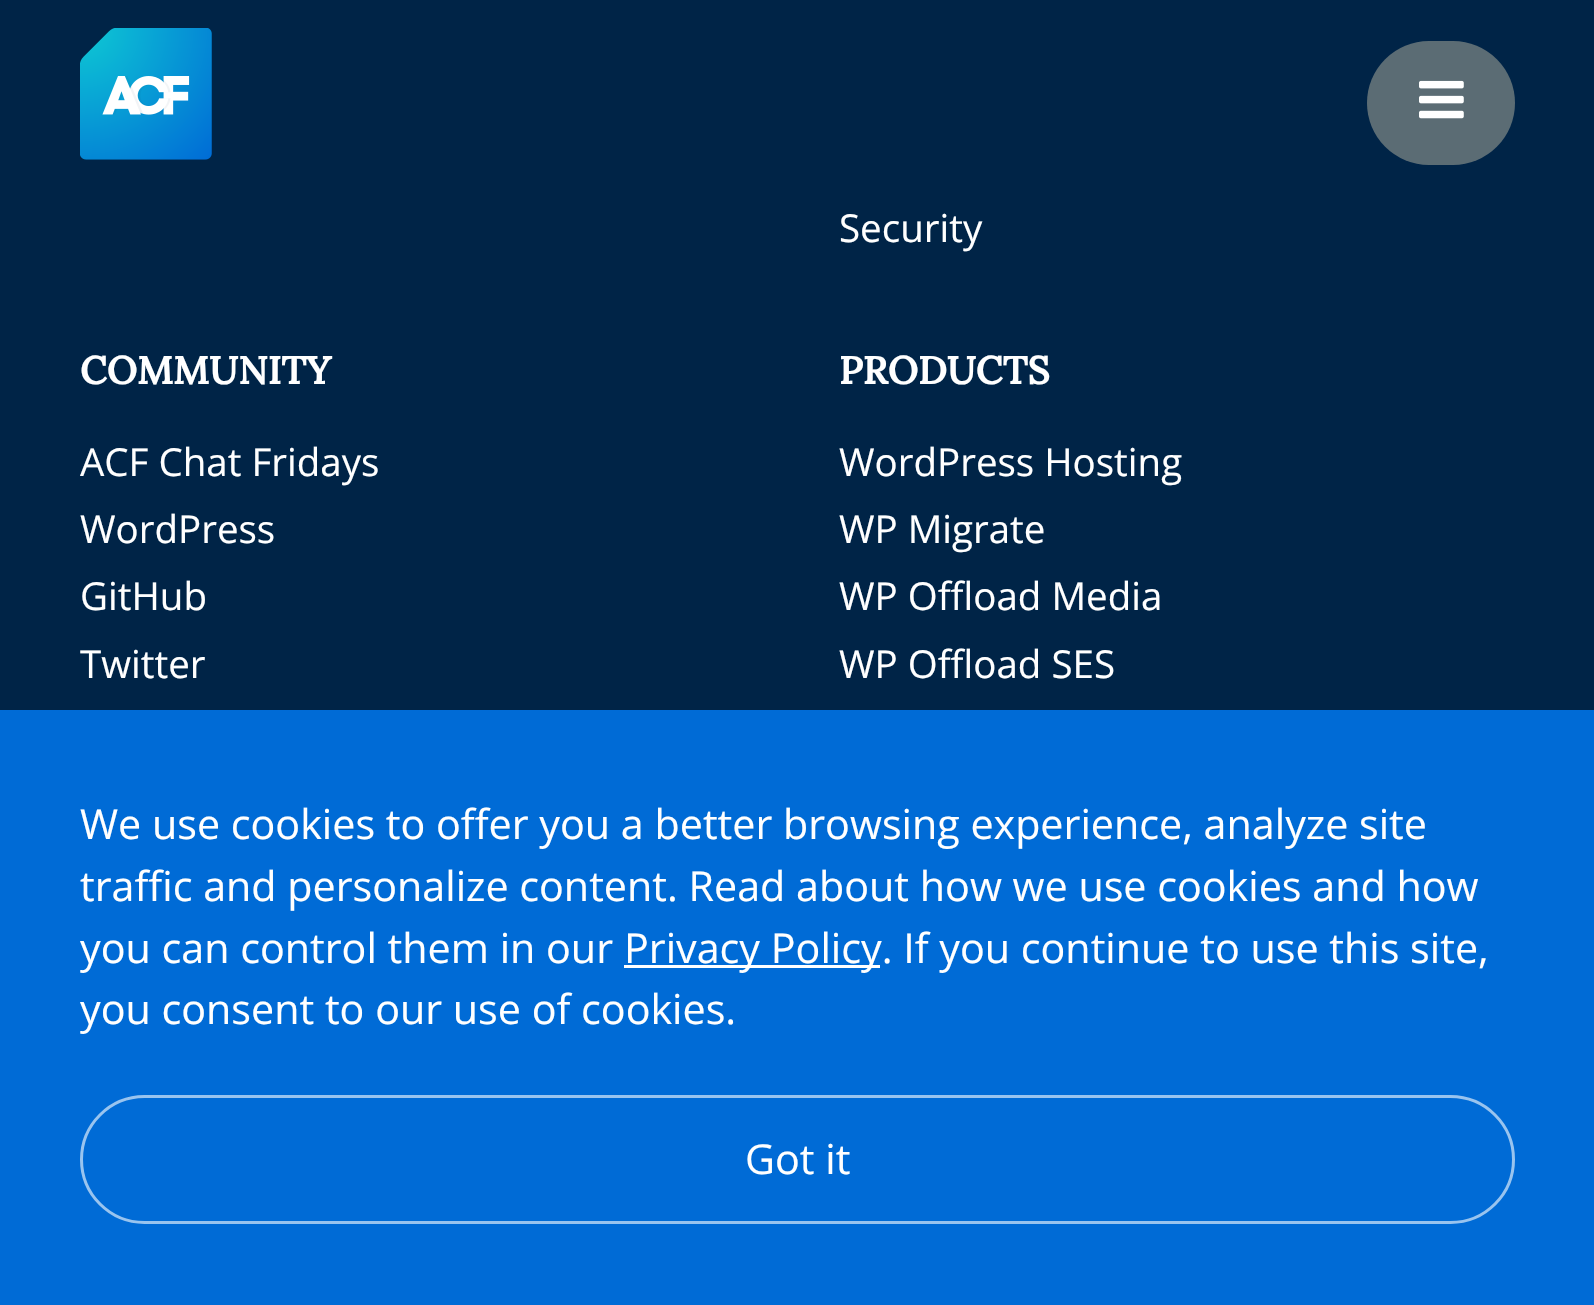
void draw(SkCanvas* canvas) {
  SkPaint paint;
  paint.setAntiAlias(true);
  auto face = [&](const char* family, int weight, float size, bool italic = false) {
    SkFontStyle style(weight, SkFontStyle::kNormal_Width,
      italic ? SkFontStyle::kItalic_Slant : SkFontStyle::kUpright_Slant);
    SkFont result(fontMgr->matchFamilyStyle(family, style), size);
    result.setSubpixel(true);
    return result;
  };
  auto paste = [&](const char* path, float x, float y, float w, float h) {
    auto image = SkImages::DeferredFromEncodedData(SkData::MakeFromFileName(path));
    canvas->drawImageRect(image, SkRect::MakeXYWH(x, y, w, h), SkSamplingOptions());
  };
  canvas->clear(0xff002447);
  paste("img/1.png", 80, 28, 132, 132);
  paint.setColor(0xff5b6c74);
  canvas->drawRoundRect(SkRect::MakeXYWH(1367, 41, 148, 124), 62, 62, paint);
  paste("img/2.png", 1419, 80, 45, 39);
  paint.setColor(0xff006bd6);
  canvas->drawRect(SkRect::MakeXYWH(0, 710, 1594, 595), paint);
  paint.setColor(0xffffffff);
  canvas->drawRect(SkRect::MakeXYWH(624, 965, 256, 3), paint);
  paint.setStroke(true);
  paint.setStrokeWidth(3);
  paint.setColor(0xff99c4ef);
  canvas->drawRoundRect(SkRect::MakeXYWH(81.5f, 1096.5f, 1432, 126), 63, 63, paint);
  auto f0 = face("Open Sans", 400, 38.5f);
  paint.setStroke(false);
  paint.setColor(0xffffffff);
  canvas->drawString("Security", 839, 242, f0, paint);
  auto f1 = face("Lora", 700, 38.5f);
  canvas->drawString("COMMUNITY", 80, 384, f1, paint);
  {
    const struct { const char* s; float x, y; } items[] = {
      {"ACF Chat Fridays", 80, 476},
      {"WordPress", 80, 543},
      {"GitHub", 80, 610},
      {"Twitter", 80, 678},
    };
    for (auto [s, x, y] : items) {
      canvas->drawString(s, x, y, f0, paint);
    }
  }
  canvas->drawString("PRODUCTS", 839, 384, f1, paint);
  {
    const struct { const char* s; float x, y; } items[] = {
      {"WordPress Hosting", 839, 476},
      {"WP Migrate", 839, 543},
      {"WP Offload Media", 839, 610},
      {"WP Offload SES", 839, 678},
    };
    for (auto [s, x, y] : items) {
      canvas->drawString(s, x, y, f0, paint);
    }
  }
  auto f2 = face("Open Sans", 400, 41.25f);
  {
    const struct { const char* s; float x, y; } items[] = {
      {"We use cookies to offer you a better browsing experience, analyze site", 80, 839},
      {"traffic and personalize content. Read about how we use cookies and how", 80, 901},
      {"you can control them in our", 80, 963},
      {"Privacy Policy. If you continue to use this site,", 624, 963},
      {"you consent to our use of cookies.", 80, 1024},
      {"Got it", 745, 1174},
    };
    for (auto [s, x, y] : items) {
      canvas->drawString(s, x, y, f2, paint);
    }
  }
}
